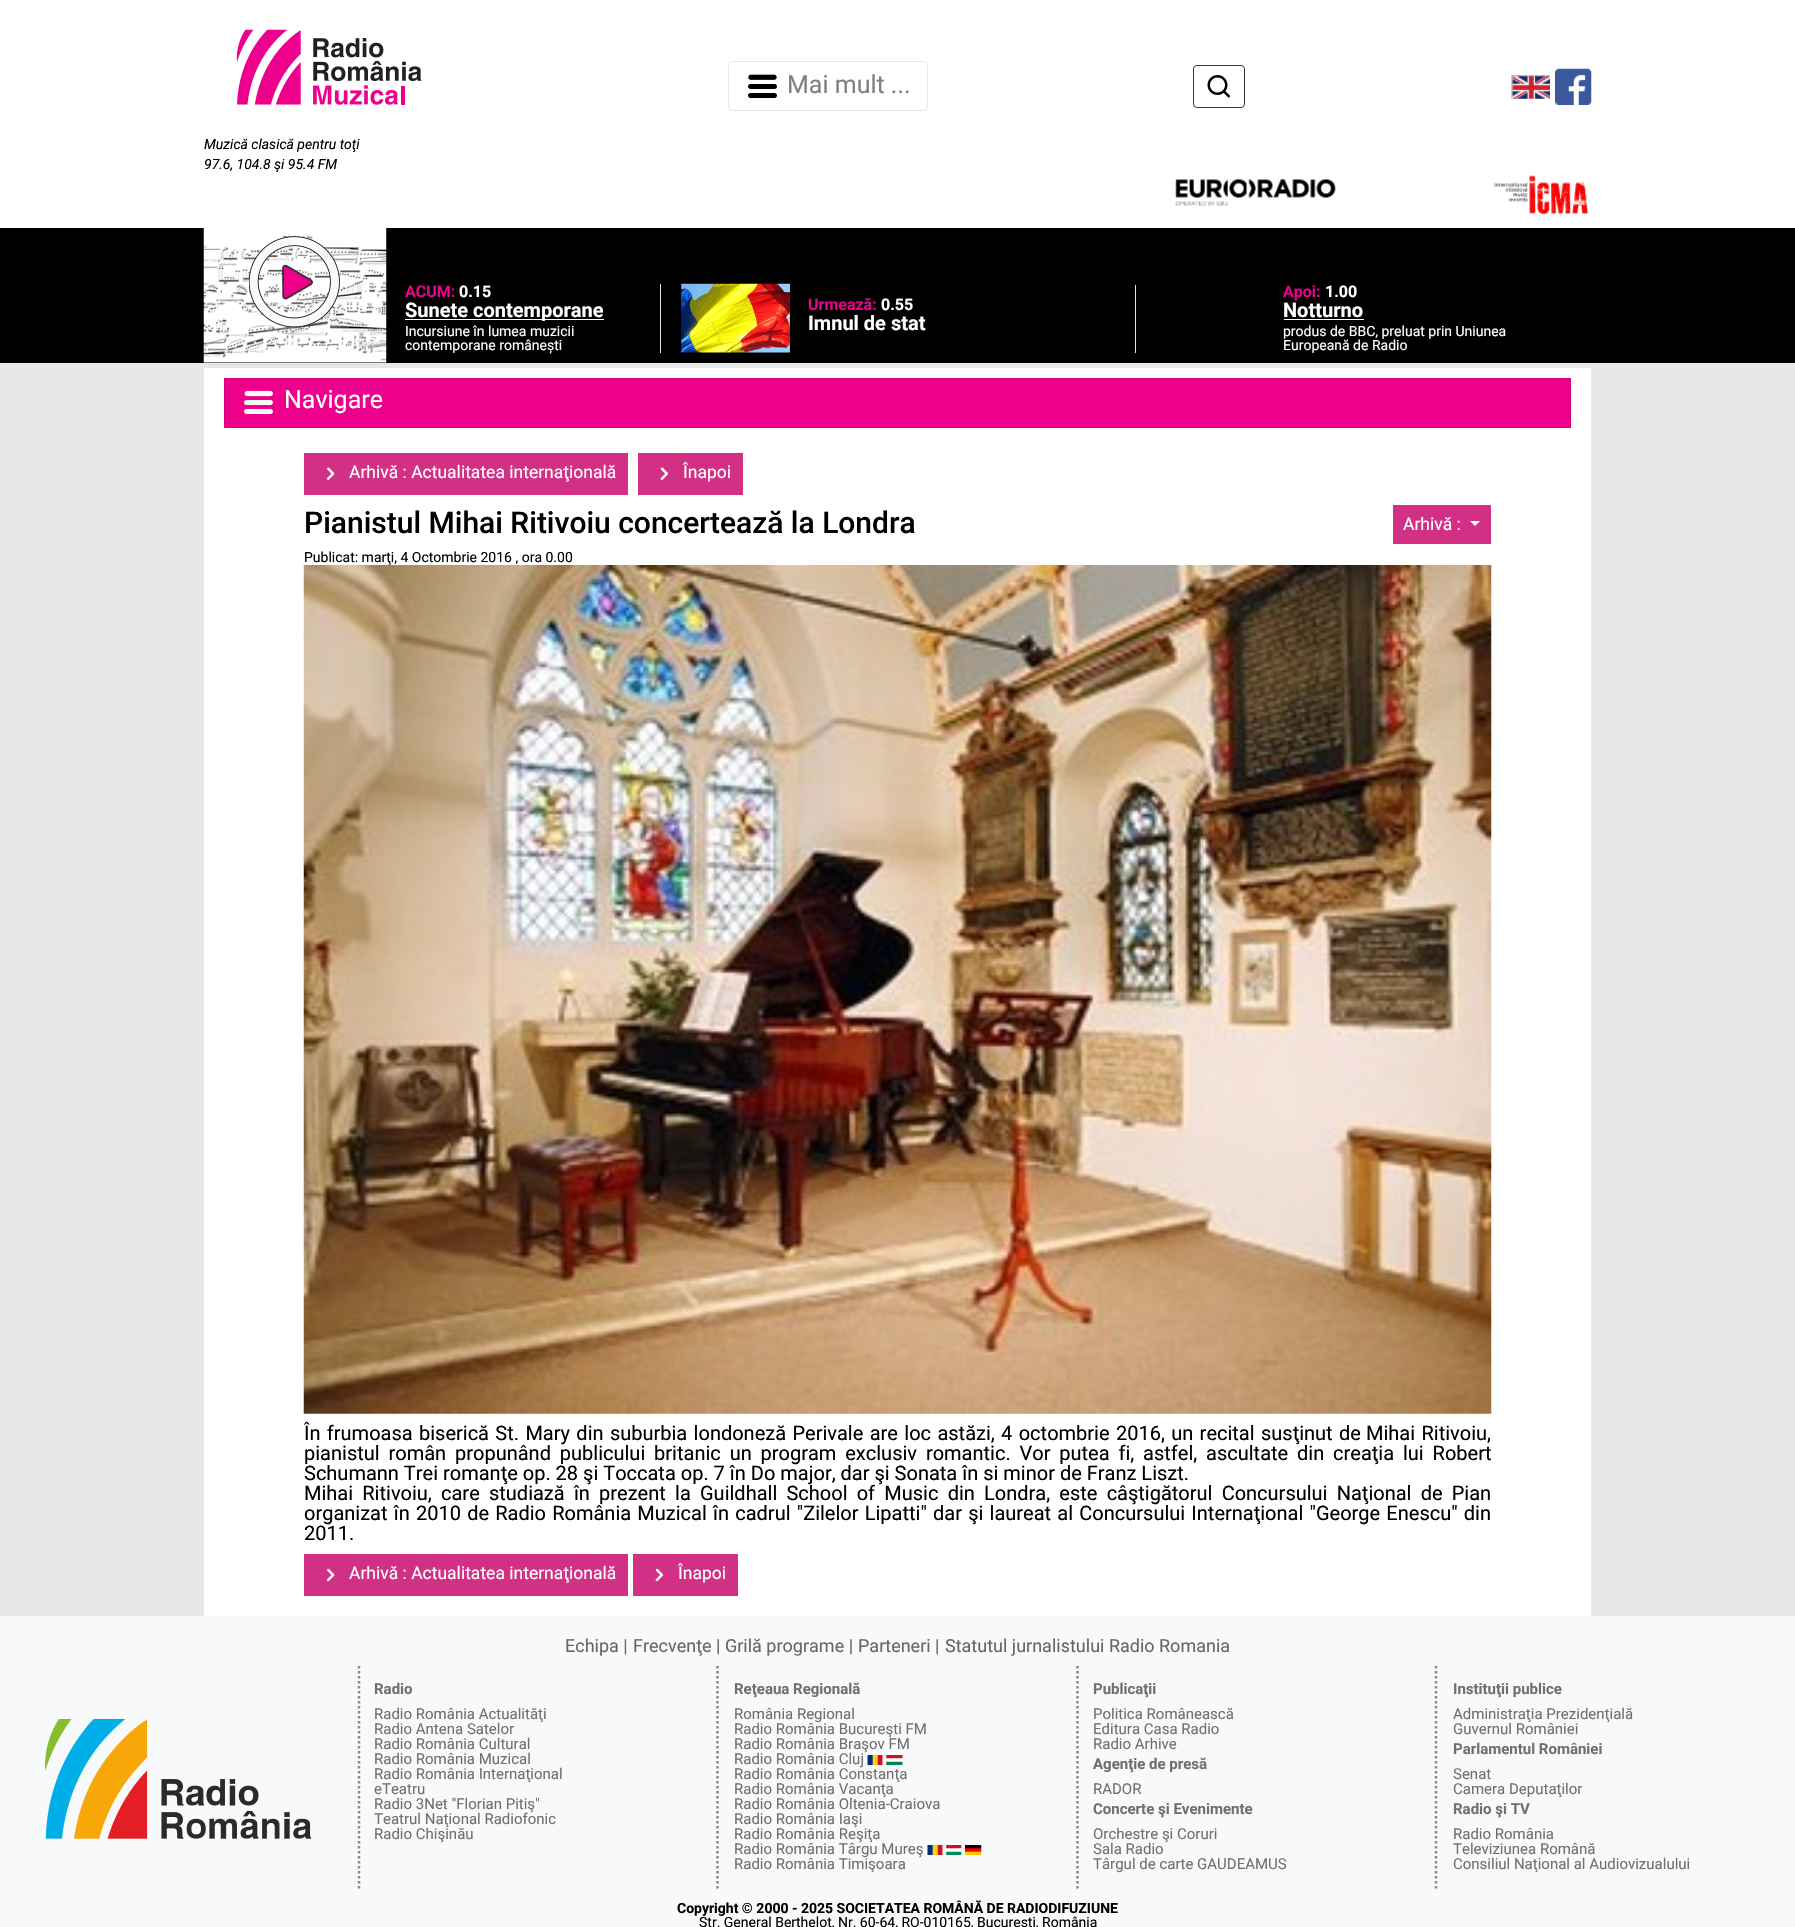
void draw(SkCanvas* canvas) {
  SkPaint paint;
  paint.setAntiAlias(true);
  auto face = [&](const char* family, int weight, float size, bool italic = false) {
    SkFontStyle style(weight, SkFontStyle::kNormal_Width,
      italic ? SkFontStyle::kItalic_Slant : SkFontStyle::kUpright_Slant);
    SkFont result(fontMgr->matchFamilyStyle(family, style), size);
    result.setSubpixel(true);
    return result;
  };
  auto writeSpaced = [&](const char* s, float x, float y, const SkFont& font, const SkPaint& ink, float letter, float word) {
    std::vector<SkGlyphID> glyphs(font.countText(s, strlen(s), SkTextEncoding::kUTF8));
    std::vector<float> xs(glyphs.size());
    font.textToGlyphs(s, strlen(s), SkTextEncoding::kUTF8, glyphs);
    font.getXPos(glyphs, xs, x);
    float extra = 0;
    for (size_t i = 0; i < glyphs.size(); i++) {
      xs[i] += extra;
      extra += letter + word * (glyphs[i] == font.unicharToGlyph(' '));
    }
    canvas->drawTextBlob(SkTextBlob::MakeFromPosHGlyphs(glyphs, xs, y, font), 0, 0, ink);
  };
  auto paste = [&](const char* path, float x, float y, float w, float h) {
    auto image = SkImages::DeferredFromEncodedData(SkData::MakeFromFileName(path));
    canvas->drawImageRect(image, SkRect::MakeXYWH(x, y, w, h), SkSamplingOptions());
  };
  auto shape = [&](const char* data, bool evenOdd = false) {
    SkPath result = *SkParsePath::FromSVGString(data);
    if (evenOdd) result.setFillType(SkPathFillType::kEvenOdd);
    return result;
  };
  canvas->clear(0xffe6e7e9);
  paint.setColor(0xffffffff);
  canvas->drawRect(SkRect::MakeXYWH(0, 0, 1795, 228), paint);
  paint.setStroke(true);
  paint.setStrokeWidth(1);
  paint.setColor(0xffe6e6e6);
  canvas->drawRoundRect(SkRect::MakeXYWH(728.5f, 61.5f, 199, 49), 4.5f, 4.5f, paint);
  paste("img/1.png", 748, 74, 29, 24);
  paint.setColor(0xff343a40);
  canvas->drawRoundRect(SkRect::MakeXYWH(1193.5f, 65.5f, 51, 42), 3.5f, 3.5f, paint);
  paste("img/2.png", 1207, 75, 23, 23);
  paste("img/3.png", 1511, 75, 39, 24);
  paste("img/4.png", 1555, 68, 37, 37);
  paste("img/5.png", 236, 29, 186, 76);
  paste("img/6.png", 1175, 178, 161, 28);
  paste("img/7.png", 1494, 175, 95, 40);
  paint.setStroke(false);
  paint.setColor(0xff000000);
  canvas->drawRect(SkRect::MakeXYWH(0, 228, 1795, 135), paint);
  paste("img/8.png", 203, 228, 184, 135);
  paste("img/9.png", 249, 236, 91, 92);
  paint.setColor(0xffffffff);
  canvas->drawRect(SkRect::MakeXYWH(405, 319, 199, 1), paint);
  paint.setColor(0xffdee2e6);
  canvas->drawRect(SkRect::MakeXYWH(660, 284, 1, 69), paint);
  paste("img/10.png", 681, 283, 109, 70);
  {
    const struct { float x, y, w, h; SkColor color; } items[] = {
      {1135, 285, 1, 68, 0xffdee2e6},
      {1284, 319, 80, 1, 0xffffffff},
      {204, 368, 1387, 1248, 0xffffffff},
    };
    for (auto [x, y, w, h, color] : items) {
      paint.setColor(color);
      canvas->drawRect(SkRect::MakeXYWH(x, y, w, h), paint);
    }
  }
  paint.setColor(0xffed008c);
  canvas->drawRect(SkRect::MakeXYWH(224.5f, 378.5f, 1346, 49), paint);
  paint.setStroke(true);
  paint.setColor(0xffd5007e);
  canvas->drawRect(SkRect::MakeXYWH(224.5f, 378.5f, 1346, 49), paint);
  paste("img/11.png", 244, 390, 29, 24);
  paint.setStroke(false);
  paint.setColor(0xffd13084);
  canvas->drawRect(SkRect::MakeXYWH(304, 453, 324, 42), paint);
  paste("img/12.png", 326, 467, 9, 13);
  canvas->drawRect(SkRect::MakeXYWH(638, 453, 105, 42), paint);
  paste("img/13.png", 660, 467, 9, 13);
  paste("img/14.png", 303, 565, 1189, 849);
  canvas->drawRect(SkRect::MakeXYWH(304, 1554, 324, 42), paint);
  paste("img/15.png", 326, 1568, 9, 14);
  canvas->drawRect(SkRect::MakeXYWH(633, 1554, 105, 42), paint);
  paste("img/16.png", 655, 1568, 9, 14);
  canvas->drawRect(SkRect::MakeXYWH(1393, 505, 98, 39), paint);
  paint.setColor(0xffffffff);
  canvas->drawPath(shape("M1470 521H1480L1475 526Z"), paint);
  paint.setColor(0xfff8f9fa);
  canvas->drawRect(SkRect::MakeXYWH(0, 1616, 1795, 311), paint);
  paste("img/17.png", 45, 1719, 266, 120);
  paint.setStroke(true);
  paint.setStrokeWidth(2.5f);
  paint.setColor(0xff898989);
  paint.setPathEffect(SkDashPathEffect::Make({{2.5f, 2.5f}}, 0));
  canvas->drawPath(shape("M359 1666V1891"), paint);
  paint.setPathEffect(nullptr);
  paint.setPathEffect(SkDashPathEffect::Make({{2.5f, 2.5f}}, 0));
  canvas->drawPath(shape("M717.5 1666V1891"), paint);
  paint.setPathEffect(nullptr);
  paste("img/18.png", 867, 1755, 16, 10);
  paste("img/19.png", 886, 1755, 17, 10);
  paste("img/18.png", 927, 1845, 16, 10);
  paste("img/20.png", 946, 1845, 16, 10);
  paste("img/21.png", 965, 1845, 17, 10);
  paint.setPathEffect(SkDashPathEffect::Make({{2.5f, 2.5f}}, 0));
  canvas->drawPath(shape("M1077.5 1666V1891"), paint);
  paint.setPathEffect(nullptr);
  paint.setPathEffect(SkDashPathEffect::Make({{2.5f, 2.5f}}, 0));
  canvas->drawPath(shape("M1436 1666V1891"), paint);
  paint.setPathEffect(nullptr);
  auto f0 = face("Roboto", 400, 25);
  paint.setStroke(false);
  paint.setColor(0xff808080);
  canvas->drawString("Mai mult ...", 787, 93, f0, paint);
  auto f1 = face("Roboto", 400, 14, true);
  paint.setColor(0xff000000);
  canvas->drawString("Muzică clasică pentru toţi", 204, 149, f1, paint);
  canvas->drawString("97.6, 104.8 şi 95.4 FM", 204, 169, f1, paint);
  auto f2 = face("Roboto", 700, 16);
  paint.setColor(0xffed008c);
  canvas->drawString("ACUM:", 405, 297, f2, paint);
  paint.setColor(0xffffffff);
  canvas->drawString("0.15", 459, 297, f2, paint);
  auto f3 = face("Roboto", 700, 20);
  canvas->drawString("Sunete contemporane", 405, 317, f3, paint);
  auto f4 = face("Roboto", 400, 14);
  canvas->drawString("Incursiune în lumea muzicii", 405, 336, f4, paint);
  canvas->drawString("contemporane românești", 405, 350, f4, paint);
  paint.setColor(0xffed008c);
  canvas->drawString("Urmează:", 808, 310, f2, paint);
  paint.setColor(0xffffffff);
  canvas->drawString("0.55", 881, 310, f2, paint);
  canvas->drawString("Imnul de stat", 808, 330, f3, paint);
  paint.setColor(0xffed008c);
  canvas->drawString("Apoi:", 1283, 297, f2, paint);
  paint.setColor(0xffffffff);
  canvas->drawString("1.00", 1325, 297, f2, paint);
  canvas->drawString("Notturno", 1283, 317, f3, paint);
  canvas->drawString("produs de BBC, preluat prin Uniunea", 1283, 336, f4, paint);
  canvas->drawString("Europeană de Radio", 1283, 350, f4, paint);
  canvas->drawString("Navigare", 284, 408, f0, paint);
  auto f5 = face("Roboto", 400, 17.5f);
  canvas->drawString("Arhivă : Actualitatea internaţională", 349, 478, f5, paint);
  canvas->drawString("Înapoi", 683, 478, f5, paint);
  auto f6 = face("Roboto", 500, 30);
  paint.setColor(0xff000000);
  canvas->drawString("Pianistul Mihai Ritivoiu concertează la Londra", 304, 533, f6, paint);
  canvas->drawString("Publicat: marţi, 4 Octombrie 2016 , ora 0.00", 304, 562, f4, paint);
  auto f7 = face("Roboto", 400, 20);
  writeSpaced("În frumoasa biserică St. Mary din suburbia londoneză Perivale are loc astăzi, 4 octombrie 2016, un recital susţinut de", 304, 1440, f7, paint, 0, 1.4f);
  writeSpaced("Mihai Ritivoiu,", 1366, 1440, f7, paint, 0, 1.4f);
  writeSpaced("pianistul român propunând publicului britanic un program exclusiv romantic. Vor putea fi, astfel, ascultate din creaţia lui Robert", 304, 1460, f7, paint, 0, 3.9f);
  canvas->drawString("Schumann Trei romanţe op. 28 şi Toccata op. 7 în Do major, dar şi Sonata în si minor de Franz Liszt.", 304, 1480, f7, paint);
  writeSpaced("Mihai Ritivoiu, care studiază în prezent la Guildhall School of Music din Londra, este câştigătorul Concursului Naţional de Pian", 304, 1500, f7, paint, 0, 4.25f);
  writeSpaced("organizat în 2010 de Radio România Muzical în cadrul \"Zilelor Lipatti\" dar şi laureat al Concursului Internaţional \"George Enescu\" din", 304, 1520, f7, paint, 0, 1.25f);
  canvas->drawString("2011.", 304, 1540, f7, paint);
  paint.setColor(0xffffffff);
  {
    const struct { const char* s; float x, y; } items[] = {
      {"Arhivă : Actualitatea internaţională", 349, 1579},
      {"Înapoi", 678, 1579},
      {"Arhivă :", 1403, 530},
    };
    for (auto [s, x, y] : items) {
      canvas->drawString(s, x, y, f5, paint);
    }
  }
  auto f8 = face("Roboto", 400, 18);
  paint.setColor(0xff666666);
  {
    const struct { const char* s; float x, y; } items[] = {
      {"Echipa |", 565, 1652},
      {"Frecvenţe |", 633, 1652},
      {"Grilă programe |", 725, 1652},
      {"Parteneri |", 858, 1652},
      {"Statutul jurnalistului Radio Romania", 945, 1652},
    };
    for (auto [s, x, y] : items) {
      canvas->drawString(s, x, y, f8, paint);
    }
  }
  auto f9 = face("Roboto", 700, 15);
  paint.setColor(0xff707070);
  canvas->drawString("Radio", 374, 1694, f9, paint);
  auto f10 = face("Roboto", 400, 15);
  {
    const struct { const char* s; float x, y; } items[] = {
      {"Radio România Actualităţi", 374, 1719},
      {"Radio Antena Satelor", 374, 1734},
      {"Radio România Cultural", 374, 1749},
      {"Radio România Muzical", 374, 1764},
      {"Radio România Internaţional", 374, 1779},
      {"eTeatru", 374, 1794},
      {"Radio 3Net \"Florian Pitiş\"", 374, 1809},
      {"Teatrul Naţional Radiofonic", 374, 1824},
      {"Radio Chişinău", 374, 1839},
    };
    for (auto [s, x, y] : items) {
      canvas->drawString(s, x, y, f10, paint);
    }
  }
  canvas->drawString("Reţeaua Regională", 734, 1694, f9, paint);
  {
    const struct { const char* s; float x, y; } items[] = {
      {"România Regional", 734, 1719},
      {"Radio România Bucureşti FM", 734, 1734},
      {"Radio România Braşov FM", 734, 1749},
      {"Radio România Cluj", 734, 1764},
      {"Radio România Constanţa", 734, 1779},
      {"Radio România Vacanţa", 734, 1794},
      {"Radio România Oltenia-Craiova", 734, 1809},
      {"Radio România Iaşi", 734, 1824},
      {"Radio România Reşiţa", 734, 1839},
      {"Radio România Târgu Mureş", 734, 1854},
      {"Radio România Timişoara", 734, 1869},
    };
    for (auto [s, x, y] : items) {
      canvas->drawString(s, x, y, f10, paint);
    }
  }
  canvas->drawString("Publicaţii", 1093, 1694, f9, paint);
  {
    const struct { const char* s; float x, y; } items[] = {
      {"Politica Românească", 1093, 1719},
      {"Editura Casa Radio", 1093, 1734},
      {"Radio Arhive", 1093, 1749},
    };
    for (auto [s, x, y] : items) {
      canvas->drawString(s, x, y, f10, paint);
    }
  }
  canvas->drawString("Agenţie de presă", 1093, 1769, f9, paint);
  canvas->drawString("RADOR", 1093, 1794, f10, paint);
  canvas->drawString("Concerte şi Evenimente", 1093, 1814, f9, paint);
  {
    const struct { const char* s; float x, y; } items[] = {
      {"Orchestre şi Coruri", 1093, 1839},
      {"Sala Radio", 1093, 1854},
      {"Târgul de carte GAUDEAMUS", 1093, 1869},
    };
    for (auto [s, x, y] : items) {
      canvas->drawString(s, x, y, f10, paint);
    }
  }
  canvas->drawString("Instituţii publice", 1453, 1694, f9, paint);
  canvas->drawString("Administraţia Prezidenţială", 1453, 1719, f10, paint);
  canvas->drawString("Guvernul României", 1453, 1734, f10, paint);
  canvas->drawString("Parlamentul României", 1453, 1754, f9, paint);
  canvas->drawString("Senat", 1453, 1779, f10, paint);
  canvas->drawString("Camera Deputaţilor", 1453, 1794, f10, paint);
  canvas->drawString("Radio şi TV", 1453, 1814, f9, paint);
  {
    const struct { const char* s; float x, y; } items[] = {
      {"Radio România", 1453, 1839},
      {"Televiziunea Română", 1453, 1854},
      {"Consiliul Naţional al Audiovizualului", 1453, 1869},
    };
    for (auto [s, x, y] : items) {
      canvas->drawString(s, x, y, f10, paint);
    }
  }
  auto f11 = face("Roboto", 700, 14);
  paint.setColor(0xff000000);
  canvas->drawString("Copyright © 2000 - 2025 SOCIETATEA ROMÂNĂ DE RADIODIFUZIUNE", 677, 1913, f11, paint);
  canvas->drawString("Str. General Berthelot, Nr. 60-64, RO-010165, Bucureşti, România", 699, 1927, f4, paint);
}
